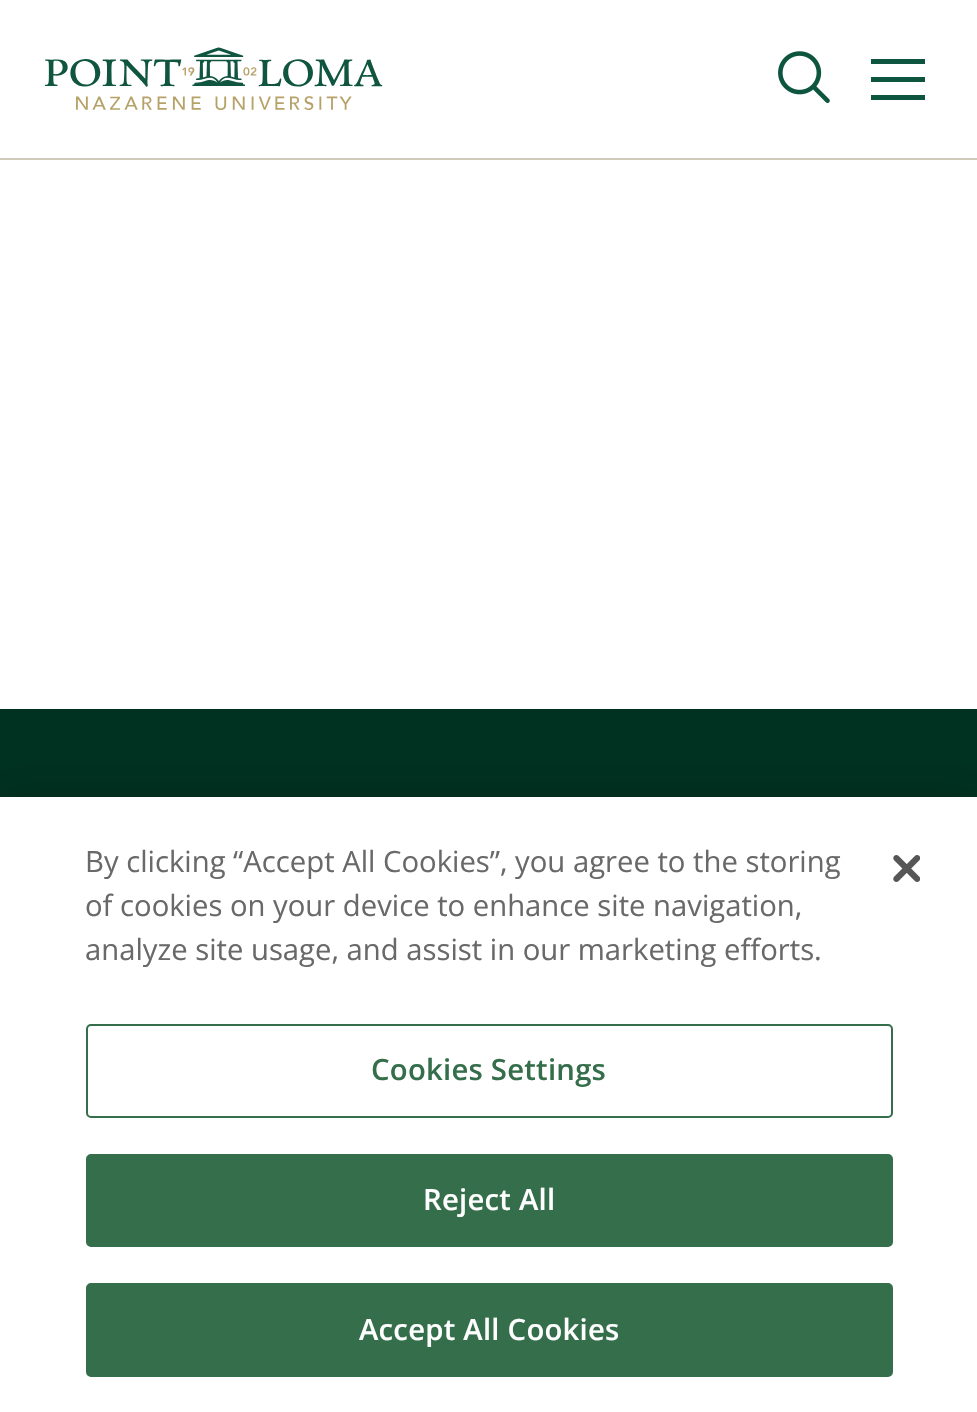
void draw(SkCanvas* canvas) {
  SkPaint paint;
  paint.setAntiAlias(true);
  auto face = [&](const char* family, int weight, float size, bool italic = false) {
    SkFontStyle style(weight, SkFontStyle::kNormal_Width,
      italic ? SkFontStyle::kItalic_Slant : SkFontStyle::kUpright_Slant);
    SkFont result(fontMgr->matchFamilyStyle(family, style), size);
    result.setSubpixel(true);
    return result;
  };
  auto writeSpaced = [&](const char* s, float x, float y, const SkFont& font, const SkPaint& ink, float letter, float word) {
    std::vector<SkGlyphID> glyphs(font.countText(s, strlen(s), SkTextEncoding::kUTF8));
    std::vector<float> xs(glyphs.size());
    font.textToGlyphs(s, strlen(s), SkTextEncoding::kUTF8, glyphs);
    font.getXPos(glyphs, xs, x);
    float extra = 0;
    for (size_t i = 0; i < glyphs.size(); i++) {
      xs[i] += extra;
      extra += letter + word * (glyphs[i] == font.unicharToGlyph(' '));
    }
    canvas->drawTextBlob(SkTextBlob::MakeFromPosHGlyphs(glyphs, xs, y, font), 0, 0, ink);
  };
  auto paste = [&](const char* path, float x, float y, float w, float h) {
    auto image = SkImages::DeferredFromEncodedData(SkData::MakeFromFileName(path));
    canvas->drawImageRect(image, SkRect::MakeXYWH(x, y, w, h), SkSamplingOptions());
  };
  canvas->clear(0xffffffff);
  paint.setColor(0xffd0cab9);
  canvas->drawRect(SkRect::MakeXYWH(0, 158, 977, 2), paint);
  paste("img/1.png", 45, 47, 338, 63);
  paste("img/2.png", 778, 51, 52, 52);
  {
    const struct { float x, y, w, h; SkColor color; } items[] = {
      {871, 77, 54, 5, 0xff0e553f},
      {871, 59, 54, 5, 0xff0e553f},
      {871, 95, 54, 5, 0xff0e553f},
      {0, 709, 977, 88, 0xff003221},
    };
    for (auto [x, y, w, h, color] : items) {
      paint.setColor(color);
      canvas->drawRect(SkRect::MakeXYWH(x, y, w, h), paint);
    }
  }
  paint.setColor(0x33000000);
  paint.setMaskFilter(SkMaskFilter::MakeBlur(kNormal_SkBlurStyle, 20));
  canvas->drawRect(SkRect::MakeXYWH(0, 797, 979, 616), paint);
  paint.setMaskFilter(nullptr);
  paint.setColor(0xffffffff);
  canvas->drawRect(SkRect::MakeXYWH(0, 797, 977, 615), paint);
  paint.setStroke(true);
  paint.setStrokeWidth(2);
  paint.setColor(0xff346e4a);
  canvas->drawRoundRect(SkRect::MakeXYWH(87, 1025, 805, 92), 4, 4, paint);
  paint.setStroke(false);
  canvas->drawRoundRect(SkRect::MakeXYWH(87, 1155, 805, 91), 4, 4, paint);
  paint.setStroke(true);
  canvas->drawRoundRect(SkRect::MakeXYWH(87, 1155, 805, 91), 4, 4, paint);
  paint.setStroke(false);
  canvas->drawRoundRect(SkRect::MakeXYWH(87, 1284, 805, 92), 4, 4, paint);
  paint.setStroke(true);
  canvas->drawRoundRect(SkRect::MakeXYWH(87, 1284, 805, 92), 4, 4, paint);
  paste("img/3.png", 893, 855, 27, 27);
  auto f0 = face("Open Sans", 400, 29.25f);
  paint.setStroke(false);
  paint.setColor(0xff696969);
  {
    const struct { const char* s; float x, y; } items[] = {
      {"By clicking “Accept All Cookies”, you agree to the storing", 85, 872},
      {"of cookies on your device to enhance site navigation,", 85, 916},
      {"analyze site usage, and assist in our marketing efforts.", 85, 960},
    };
    for (auto [s, x, y] : items) {
      canvas->drawString(s, x, y, f0, paint);
    }
  }
  auto f1 = face("Open Sans", 600, 29.25f);
  paint.setColor(0xff346e4a);
  writeSpaced("Cookies Settings", 371, 1080, f1, paint, 0.25f, 0);
  paint.setColor(0xffffffff);
  writeSpaced("Reject All", 423, 1210, f1, paint, 0.25f, 0);
  writeSpaced("Accept All Cookies", 359, 1340, f1, paint, 0.25f, 0);
}
